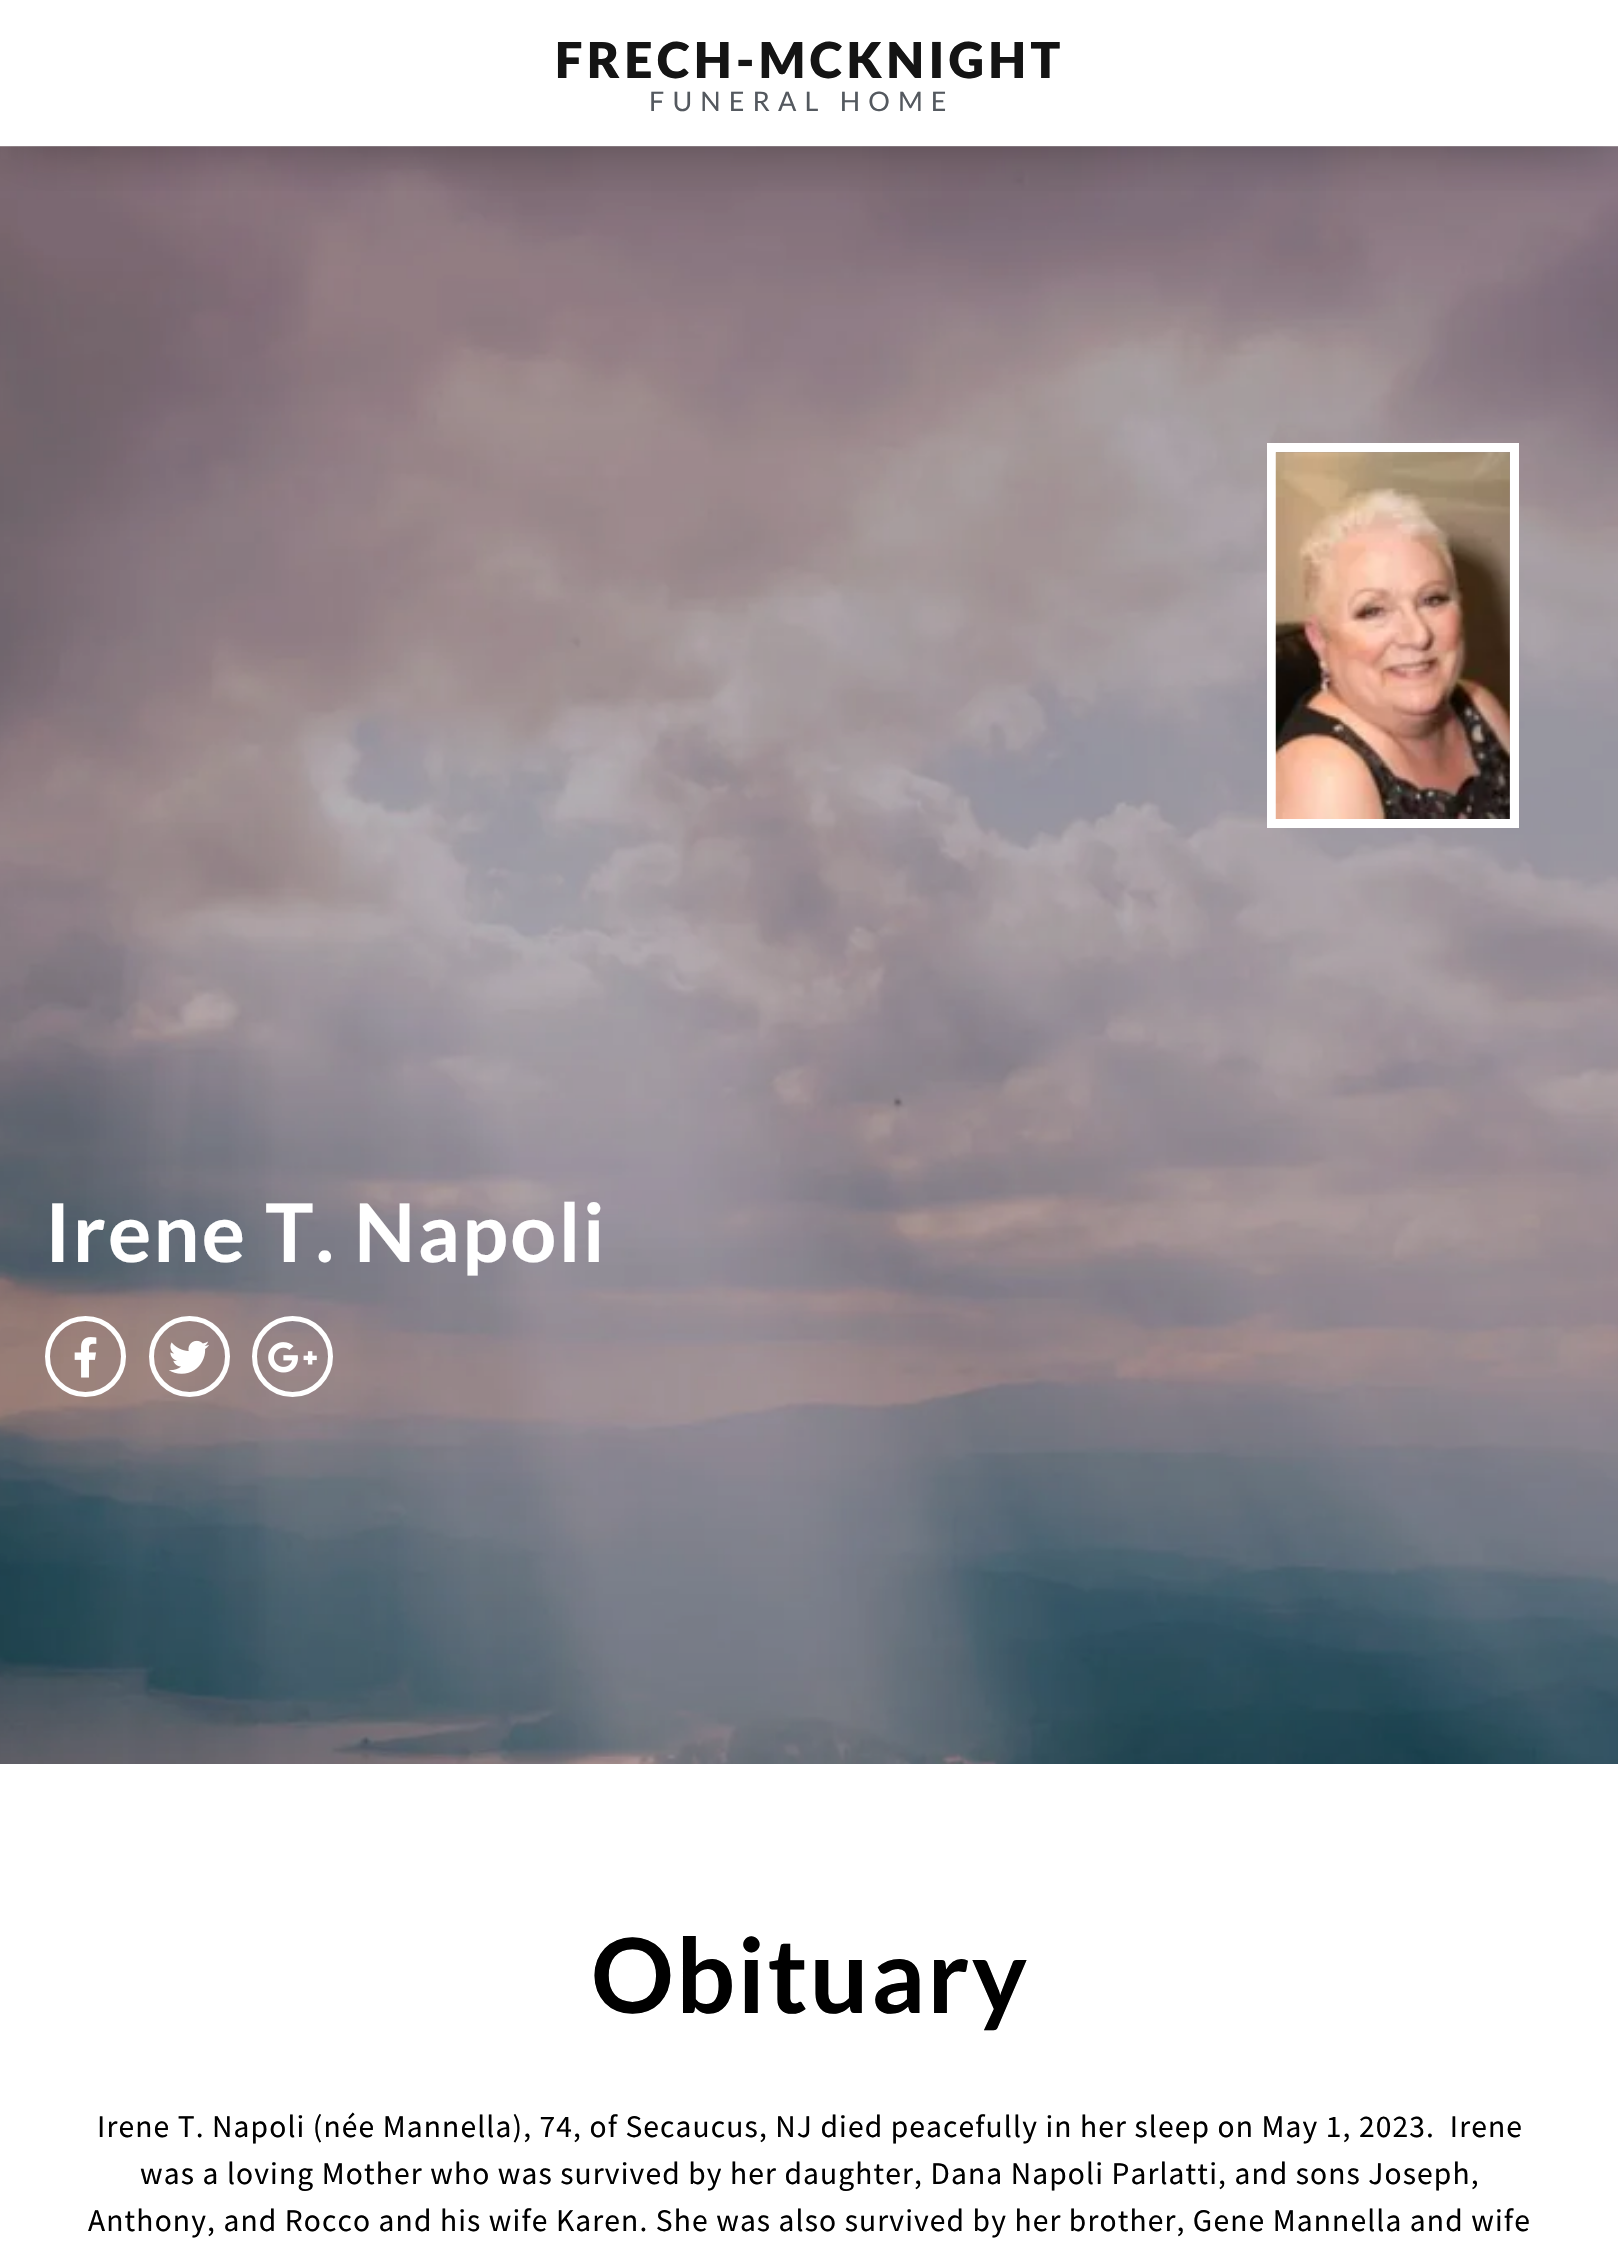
void draw(SkCanvas* canvas) {
  SkPaint paint;
  paint.setAntiAlias(true);
  auto face = [&](const char* family, int weight, float size, bool italic = false) {
    SkFontStyle style(weight, SkFontStyle::kNormal_Width,
      italic ? SkFontStyle::kItalic_Slant : SkFontStyle::kUpright_Slant);
    SkFont result(fontMgr->matchFamilyStyle(family, style), size);
    result.setSubpixel(true);
    return result;
  };
  auto writeSpaced = [&](const char* s, float x, float y, const SkFont& font, const SkPaint& ink, float letter, float word) {
    std::vector<SkGlyphID> glyphs(font.countText(s, strlen(s), SkTextEncoding::kUTF8));
    std::vector<float> xs(glyphs.size());
    font.textToGlyphs(s, strlen(s), SkTextEncoding::kUTF8, glyphs);
    font.getXPos(glyphs, xs, x);
    float extra = 0;
    for (size_t i = 0; i < glyphs.size(); i++) {
      xs[i] += extra;
      extra += letter + word * (glyphs[i] == font.unicharToGlyph(' '));
    }
    canvas->drawTextBlob(SkTextBlob::MakeFromPosHGlyphs(glyphs, xs, y, font), 0, 0, ink);
  };
  auto paste = [&](const char* path, float x, float y, float w, float h) {
    auto image = SkImages::DeferredFromEncodedData(SkData::MakeFromFileName(path));
    canvas->drawImageRect(image, SkRect::MakeXYWH(x, y, w, h), SkSamplingOptions());
  };
  canvas->clear(0xffffffff);
  paste("img/1.png", 0, 146, 1618, 1618);
  canvas->save();
  canvas->clipRect(SkRect::MakeXYWH(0, 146, 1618, 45));
  paint.setColor(0x80000000);
  paint.setMaskFilter(SkMaskFilter::MakeBlur(kNormal_SkBlurStyle, 34));
  canvas->drawRect(SkRect::MakeXYWH(16, 16, 1588, 115), paint);
  paint.setMaskFilter(nullptr);
  canvas->restore();
  paint.setStroke(true);
  paint.setStrokeWidth(9);
  paint.setColor(0xffffffff);
  canvas->drawRect(SkRect::MakeXYWH(1271.5f, 447.5f, 243, 376), paint);
  paste("img/2.png", 1275, 452, 235, 367);
  paint.setStrokeWidth(5);
  canvas->drawCircle(85.5f, 1356.5f, 38, paint);
  paste("img/3.png", 74, 1337, 23, 41);
  canvas->drawCircle(189.5f, 1356.5f, 38, paint);
  paste("img/4.png", 169, 1340, 40, 34);
  canvas->drawCircle(292.5f, 1356.5f, 38, paint);
  paste("img/5.png", 268, 1342, 49, 31);
  auto f0 = face("Lato", 900, 49.5f);
  paint.setStroke(false);
  paint.setColor(0xff141414);
  writeSpaced("FRECH-MCKNIGHT", 555, 78, f0, paint, 4.5f, 0);
  auto f1 = face("Lato", 400, 27);
  paint.setColor(0xff54595f);
  writeSpaced("FUNERAL HOME", 649, 111, f1, paint, 8.1f, 0);
  auto f2 = face("Lato", 700, 81);
  paint.setColor(0xffffffff);
  writeSpaced("Irene T. Napoli", 45, 1262, f2, paint, 2.25f, 0);
  auto f3 = face("Lato", 700, 103.5f);
  paint.setColor(0xff000000);
  writeSpaced("Obituary", 591, 2013, f3, paint, 2.25f, 0);
  auto f4 = face("Source Sans Pro", 400, 31.5f);
  {
    const struct { const char* s; float x, y; } items[] = {
      {"Irene T. Napoli (née Mannella), 74, of Secaucus, NJ died peacefully in her sleep on May 1, 2023.  Irene", 97, 2137},
      {"was a loving Mother who was survived by her daughter, Dana Napoli Parlatti, and sons Joseph,", 140, 2184},
      {"Anthony, and Rocco and his wife Karen. She was also survived by her brother, Gene Mannella and wife", 88, 2231},
    };
    for (auto [s, x, y] : items) {
      writeSpaced(s, x, y, f4, paint, 1.12f, 0);
    }
  }
}
